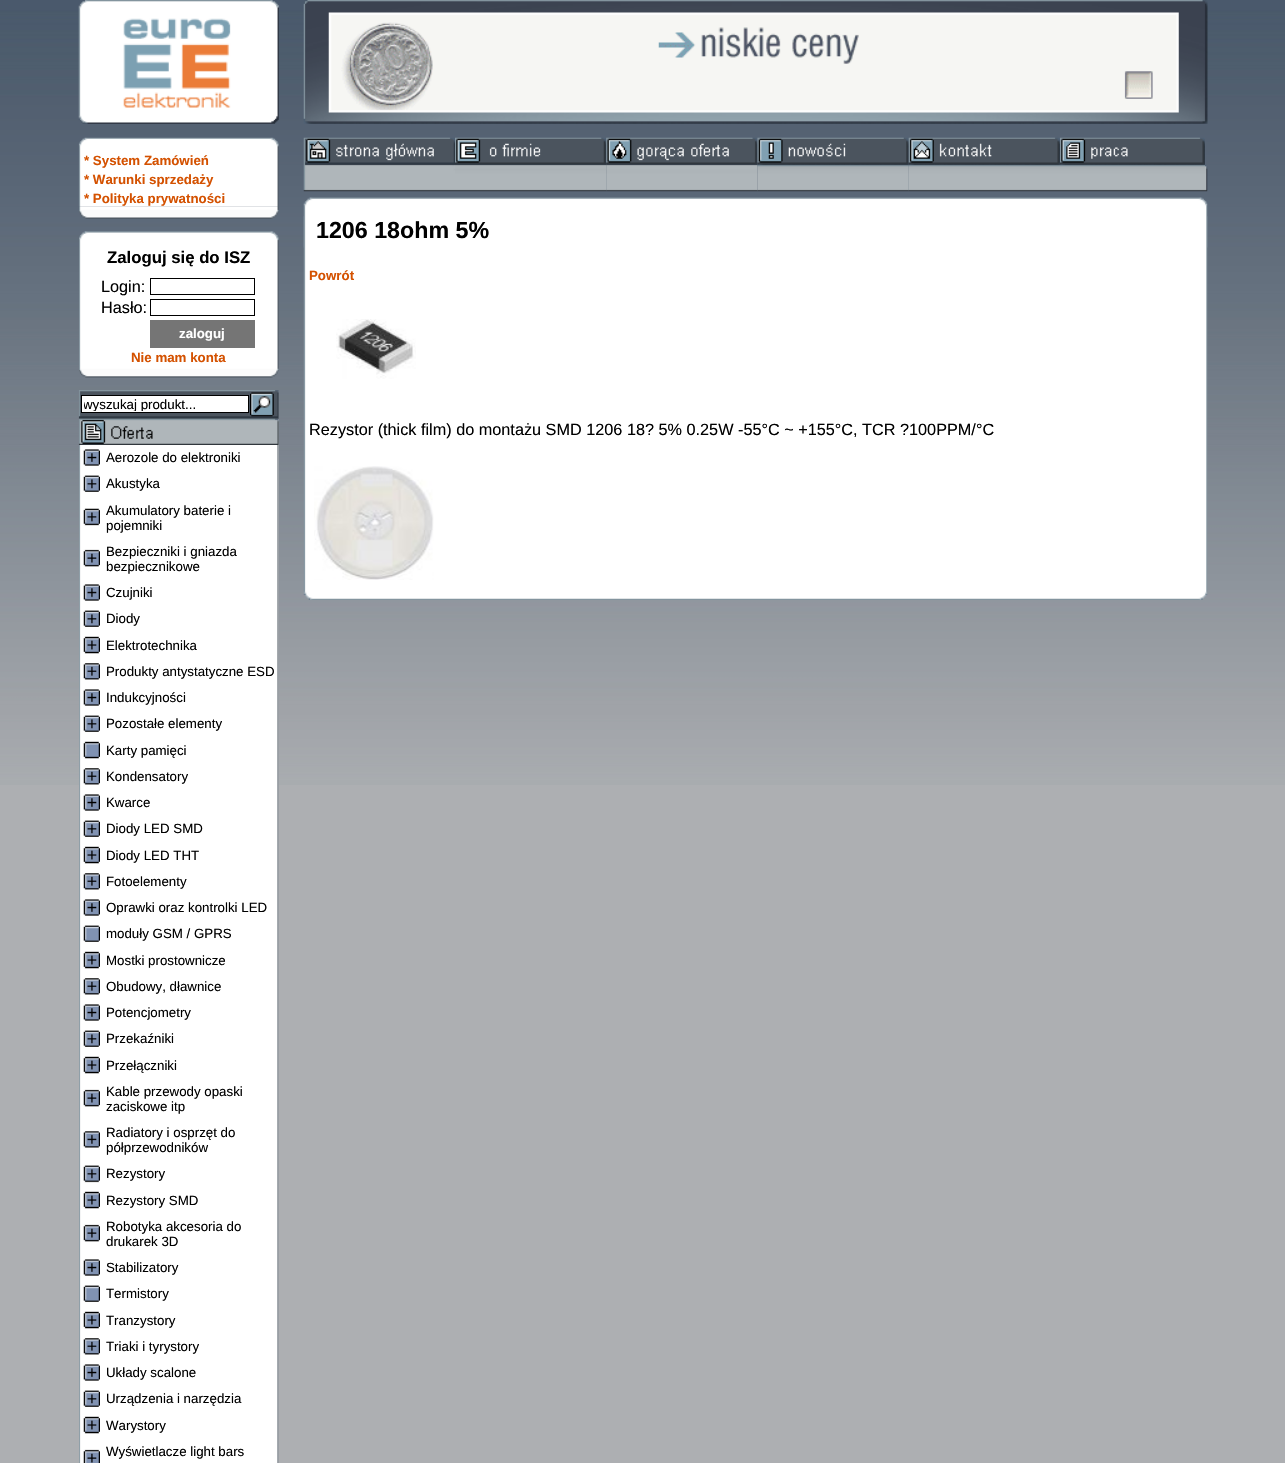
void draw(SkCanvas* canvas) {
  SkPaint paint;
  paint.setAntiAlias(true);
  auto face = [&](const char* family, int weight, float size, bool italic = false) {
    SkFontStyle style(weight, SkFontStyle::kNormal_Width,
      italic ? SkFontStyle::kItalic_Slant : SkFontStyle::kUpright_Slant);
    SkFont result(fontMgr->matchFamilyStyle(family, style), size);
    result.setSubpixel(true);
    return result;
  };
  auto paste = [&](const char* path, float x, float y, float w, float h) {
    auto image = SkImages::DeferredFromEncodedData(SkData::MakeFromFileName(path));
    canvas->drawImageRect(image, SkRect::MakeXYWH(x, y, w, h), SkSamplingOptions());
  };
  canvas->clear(0xffadafb2);
  paste("img/1.png", 0, 0, 1285, 785);
  paste("img/2.png", 303, 0, 905, 124);
  paste("img/3.png", 78, 0, 201, 124);
  paste("img/4.png", 328, 12, 851, 101);
  paste("img/5.png", 79, 206, 200, 13);
  paste("img/6.png", 78, 137, 201, 70);
  paste("img/7.png", 79, 365, 200, 13);
  paste("img/8.png", 79, 231, 200, 134);
  paint.setStroke(true);
  paint.setStrokeWidth(1);
  paint.setColor(0xff000000);
  canvas->drawRect(SkRect::MakeXYWH(150.5f, 278.5f, 104, 16), paint);
  canvas->drawRect(SkRect::MakeXYWH(150.5f, 299.5f, 104, 16), paint);
  paint.setStroke(false);
  paint.setColor(0xff757575);
  canvas->drawRect(SkRect::MakeXYWH(150, 320, 105, 28), paint);
  paste("img/9.png", 78, 390, 201, 29);
  paint.setColor(0xffffffff);
  canvas->drawRect(SkRect::MakeXYWH(81.5f, 395.5f, 167, 17), paint);
  paint.setStroke(true);
  paint.setColor(0xff000000);
  canvas->drawRect(SkRect::MakeXYWH(81.5f, 395.5f, 167, 17), paint);
  paste("img/10.png", 250, 392, 24, 25);
  paint.setStroke(false);
  paint.setColor(0xffafb6ba);
  canvas->drawRect(SkRect::MakeXYWH(278, 419, 1, 26), paint);
  paste("img/11.png", 78, 418, 201, 27);
  paint.setColor(0xffffffff);
  canvas->drawRect(SkRect::MakeXYWH(278, 445, 1, 1018), paint);
  paste("img/12.png", 79, 445, 200, 1018);
  paste("img/13.png", 83, 449, 17, 17);
  paste("img/14.png", 83, 475, 17, 17);
  paste("img/15.png", 83, 508, 17, 18);
  paste("img/16.png", 83, 549, 17, 18);
  paste("img/17.png", 83, 584, 17, 17);
  paste("img/14.png", 83, 610, 17, 17);
  paste("img/18.png", 83, 636, 17, 18);
  paste("img/19.png", 83, 663, 17, 17);
  paste("img/13.png", 83, 689, 17, 17);
  paste("img/14.png", 83, 715, 17, 17);
  paste("img/20.png", 83, 741, 17, 18);
  paste("img/19.png", 83, 768, 17, 17);
  paste("img/13.png", 83, 794, 17, 17);
  paste("img/14.png", 83, 820, 17, 17);
  paste("img/18.png", 83, 846, 17, 18);
  paste("img/19.png", 83, 873, 17, 17);
  paste("img/13.png", 83, 899, 17, 17);
  paste("img/21.png", 83, 925, 17, 17);
  paste("img/18.png", 83, 951, 17, 18);
  paste("img/19.png", 83, 978, 17, 17);
  paste("img/13.png", 83, 1004, 17, 17);
  paste("img/14.png", 83, 1030, 17, 17);
  paste("img/18.png", 83, 1056, 17, 18);
  paste("img/16.png", 83, 1089, 17, 18);
  paste("img/22.png", 83, 1131, 17, 17);
  paste("img/23.png", 83, 1165, 17, 18);
  paste("img/18.png", 83, 1191, 17, 18);
  paste("img/16.png", 83, 1224, 17, 18);
  paste("img/13.png", 83, 1259, 17, 17);
  paste("img/21.png", 83, 1285, 17, 17);
  paste("img/18.png", 83, 1311, 17, 18);
  paste("img/19.png", 83, 1338, 17, 17);
  paste("img/13.png", 83, 1364, 17, 17);
  paste("img/14.png", 83, 1390, 17, 17);
  paste("img/18.png", 83, 1416, 17, 18);
  paste("img/24.png", 83, 1449, 17, 14);
  paste("img/25.png", 303, 137, 152, 55);
  paste("img/26.png", 455, 137, 152, 55);
  paste("img/27.png", 606, 137, 152, 55);
  paste("img/28.png", 757, 137, 152, 55);
  paste("img/29.png", 908, 137, 152, 55);
  paste("img/30.png", 1060, 137, 145, 55);
  paste("img/31.png", 1205, 165, 3, 27);
  paste("img/32.png", 303, 567, 905, 33);
  paste("img/33.png", 303, 197, 905, 51);
  paste("img/34.png", 303, 216, 905, 352);
  paste("img/35.png", 336, 319, 80, 60);
  paste("img/36.png", 314, 466, 120, 114);
  auto f0 = face("Liberation Sans", 700, 13.3f);
  paint.setColor(0xffd45100);
  {
    const struct { const char* s; float x, y; } items[] = {
      {"* System Zamówień", 84, 165},
      {"* Warunki sprzedaży", 84, 184},
      {"* Polityka prywatności", 84, 203},
    };
    for (auto [s, x, y] : items) {
      canvas->drawString(s, x, y, f0, paint);
    }
  }
  auto f1 = face("Liberation Sans", 700, 16.75f);
  paint.setColor(0xff000000);
  canvas->drawString("Zaloguj się do ISZ", 107, 263, f1, paint);
  auto f2 = face("Liberation Sans", 400, 16.25f);
  canvas->drawString("Login:", 101, 292, f2, paint);
  canvas->drawString("Hasło:", 101, 313, f2, paint);
  paint.setColor(0xffffffff);
  canvas->drawString("zaloguj", 179, 338, f0, paint);
  paint.setColor(0xffd45100);
  canvas->drawString("Nie mam konta", 131, 362, f0, paint);
  canvas->save();
  canvas->clipRect(SkRect::MakeXYWH(84, 396, 162, 15));
  auto f3 = face("Liberation Sans", 400, 13.3f);
  paint.setColor(0xff000000);
  canvas->drawString("wyszukaj produkt...", 83, 409, f3, paint);
  canvas->restore();
  {
    const struct { const char* s; float x, y; } items[] = {
      {"Aerozole do elektroniki", 106, 462},
      {"Akustyka", 106, 488},
      {"Akumulatory baterie i", 106, 515},
      {"pojemniki", 106, 530},
      {"Bezpieczniki i gniazda", 106, 556},
      {"bezpiecznikowe", 106, 571},
      {"Czujniki", 106, 597},
      {"Diody", 106, 623},
      {"Elektrotechnika", 106, 650},
      {"Produkty antystatyczne ESD", 106, 676},
      {"Indukcyjności", 106, 702},
      {"Pozostałe elementy", 106, 728},
      {"Karty pamięci", 106, 755},
      {"Kondensatory", 106, 781},
      {"Kwarce", 106, 807},
      {"Diody LED SMD", 106, 833},
      {"Diody LED THT", 106, 860},
      {"Fotoelementy", 106, 886},
      {"Oprawki oraz kontrolki LED", 106, 912},
      {"moduły GSM / GPRS", 106, 938},
      {"Mostki prostownicze", 106, 965},
      {"Obudowy, dławnice", 106, 991},
      {"Potencjometry", 106, 1017},
      {"Przekaźniki", 106, 1043},
      {"Przełączniki", 106, 1070},
      {"Kable przewody opaski", 106, 1096},
      {"zaciskowe itp", 106, 1111},
      {"Radiatory i osprzęt do", 106, 1137},
      {"półprzewodników", 106, 1152},
      {"Rezystory", 106, 1178},
      {"Rezystory SMD", 106, 1205},
      {"Robotyka akcesoria do", 106, 1231},
      {"drukarek 3D", 106, 1246},
      {"Stabilizatory", 106, 1272},
      {"Termistory", 106, 1298},
      {"Tranzystory", 106, 1325},
      {"Triaki i tyrystory", 106, 1351},
      {"Układy scalone", 106, 1377},
      {"Urządzenia i narzędzia", 106, 1403},
      {"Warystory", 106, 1430},
      {"Wyświetlacze light bars", 106, 1456},
    };
    for (auto [s, x, y] : items) {
      canvas->drawString(s, x, y, f3, paint);
    }
  }
  auto f4 = face("Liberation Sans", 700, 23.25f);
  canvas->drawString("1206 18ohm 5%", 316, 238, f4, paint);
  paint.setColor(0xffd45100);
  canvas->drawString("Powrót", 309, 280, f0, paint);
  paint.setColor(0xff000000);
  canvas->drawString("Rezystor (thick film) do montażu SMD 1206 18? 5% 0.25W -55°C ~ +155°C, TCR ?100PPM/°C", 309, 435, f2, paint);
}
